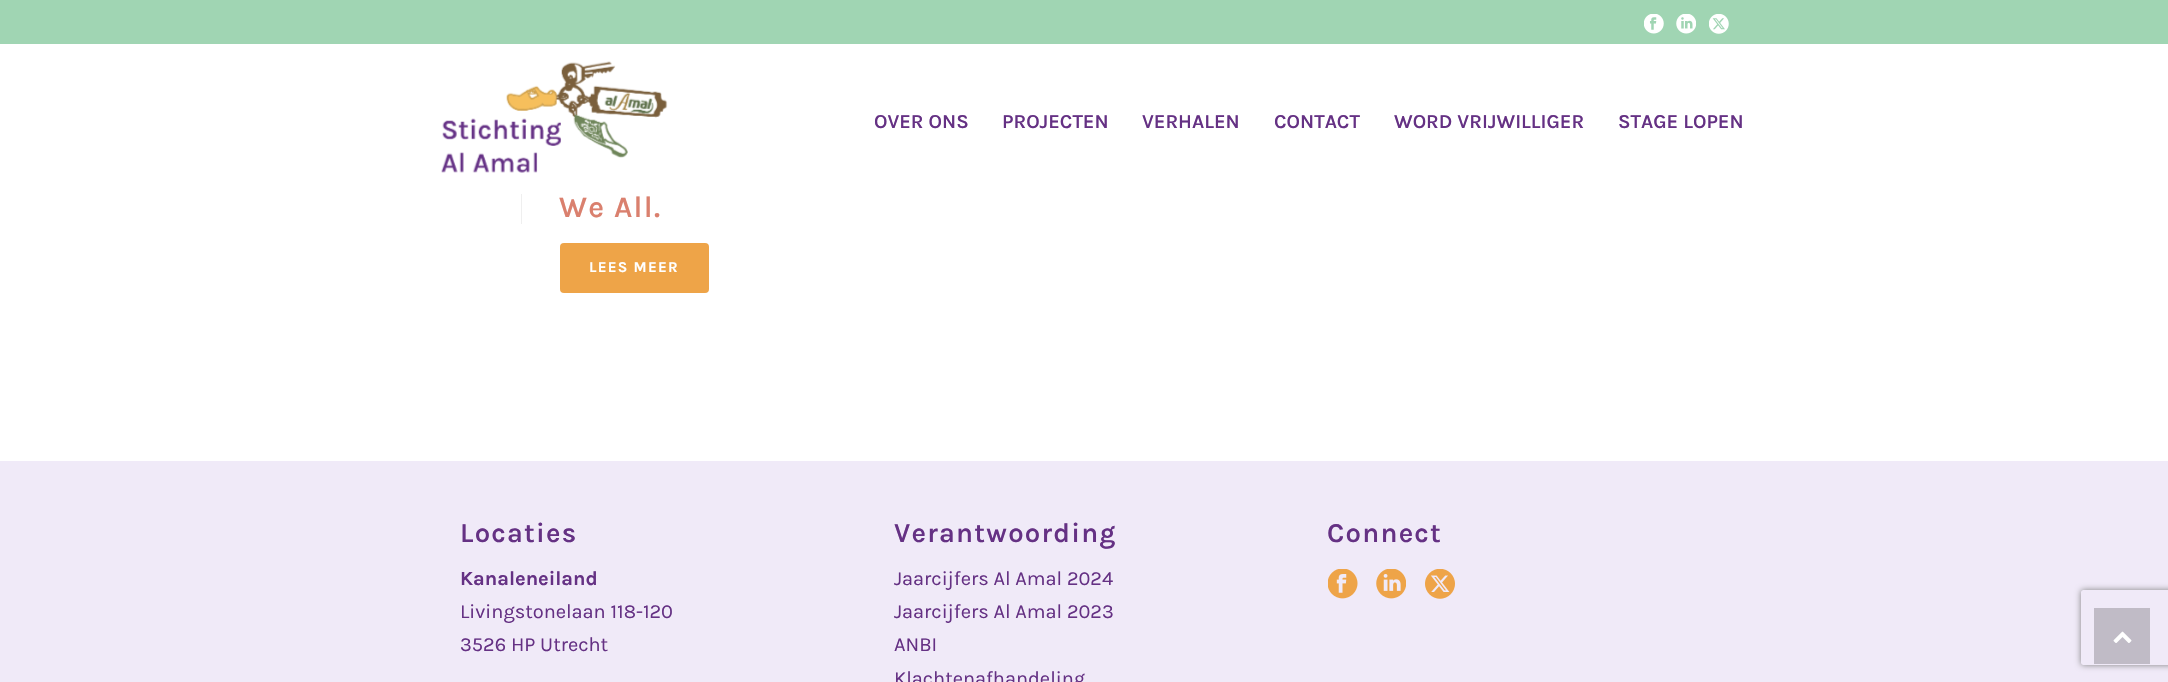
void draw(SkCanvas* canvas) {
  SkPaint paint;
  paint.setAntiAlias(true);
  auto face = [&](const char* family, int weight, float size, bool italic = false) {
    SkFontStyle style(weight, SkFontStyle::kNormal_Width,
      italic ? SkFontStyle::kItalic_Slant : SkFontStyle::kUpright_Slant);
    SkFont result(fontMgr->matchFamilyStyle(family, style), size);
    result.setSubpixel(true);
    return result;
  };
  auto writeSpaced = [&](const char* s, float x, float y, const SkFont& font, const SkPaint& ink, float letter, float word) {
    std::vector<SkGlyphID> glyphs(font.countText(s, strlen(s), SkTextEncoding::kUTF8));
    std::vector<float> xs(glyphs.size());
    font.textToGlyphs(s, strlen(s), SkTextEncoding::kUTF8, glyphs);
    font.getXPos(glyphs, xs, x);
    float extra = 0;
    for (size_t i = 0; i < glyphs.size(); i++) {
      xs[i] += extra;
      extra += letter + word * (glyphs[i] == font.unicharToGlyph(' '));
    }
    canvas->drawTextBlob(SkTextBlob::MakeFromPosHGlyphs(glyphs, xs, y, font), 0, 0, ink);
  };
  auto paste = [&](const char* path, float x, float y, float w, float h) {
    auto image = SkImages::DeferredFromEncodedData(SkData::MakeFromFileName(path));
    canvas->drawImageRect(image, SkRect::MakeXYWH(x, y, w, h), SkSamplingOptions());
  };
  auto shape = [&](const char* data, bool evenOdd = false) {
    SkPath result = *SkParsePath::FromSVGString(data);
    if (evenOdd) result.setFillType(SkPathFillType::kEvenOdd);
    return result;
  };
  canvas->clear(0xffffffff);
  paint.setColor(0xffa0d5b3);
  canvas->drawRect(SkRect::MakeXYWH(0, 0, 2168, 44), paint);
  paste("img/1.png", 1644, 14, 20, 20);
  paste("img/2.png", 1676, 14, 20, 20);
  paste("img/3.png", 1709, 14, 20, 20);
  paste("img/4.png", 441, 61, 227, 112);
  paint.setColor(0xffefefef);
  canvas->drawRect(SkRect::MakeXYWH(521, 194, 1, 30), paint);
  paint.setColor(0xffeea448);
  canvas->drawRoundRect(SkRect::MakeXYWH(560, 243, 149, 50), 4, 4, paint);
  paint.setColor(0xfff0eaf8);
  canvas->drawRect(SkRect::MakeXYWH(0, 461, 2168, 221), paint);
  paste("img/5.png", 1328, 569, 30, 30);
  paste("img/6.png", 1376, 569, 30, 30);
  paste("img/7.png", 1425, 569, 30, 30);
  canvas->save();
  canvas->clipPath(shape("M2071 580H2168V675H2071ZM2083.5 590H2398.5C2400 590 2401 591 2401 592.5V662.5C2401 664 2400 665 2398.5 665H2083.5C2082 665 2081 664 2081 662.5V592.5C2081 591 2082 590 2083.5 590Z", true), true);
  paint.setColor(0xff808080);
  paint.setMaskFilter(SkMaskFilter::MakeBlur(kNormal_SkBlurStyle, 3));
  canvas->drawRoundRect(SkRect::MakeXYWH(2081, 590, 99, 75), 2.5f, 2.5f, paint);
  paint.setMaskFilter(nullptr);
  canvas->restore();
  paint.setColor(0xffc0bbc6);
  canvas->drawRect(SkRect::MakeXYWH(2094, 608, 56, 56), paint);
  paste("img/8.png", 2113, 631, 19, 12);
  auto f0 = face("Karla", 600, 20);
  paint.setColor(0xff653184);
  {
    const struct { const char* s; float x, y; } items[] = {
      {"OVER ONS", 874, 128},
      {"PROJECTEN", 1002, 128},
      {"VERHALEN", 1142, 128},
      {"CONTACT", 1274, 128},
      {"WORD VRIJWILLIGER", 1394, 128},
      {"STAGE LOPEN", 1618, 128},
    };
    for (auto [s, x, y] : items) {
      canvas->drawString(s, x, y, f0, paint);
    }
  }
  auto f1 = face("Karla", 600, 30);
  paint.setColor(0xffda806e);
  writeSpaced("We All.", 559, 217, f1, paint, 1.25f, 0);
  auto f2 = face("Karla", 700, 15);
  paint.setColor(0xffffffff);
  writeSpaced("LEES MEER", 589, 272, f2, paint, 1.25f, 0);
  auto f3 = face("Karla", 600, 27.5f);
  paint.setColor(0xff653184);
  writeSpaced("Locaties", 460, 542, f3, paint, 1.25f, 0);
  auto f4 = face("Karla", 700, 20);
  canvas->drawString("Kanaleneiland", 460, 585, f4, paint);
  auto f5 = face("Karla", 400, 20);
  canvas->drawString("Livingstonelaan 118-120", 460, 618, f5, paint);
  canvas->drawString("3526 HP Utrecht", 460, 651, f5, paint);
  writeSpaced("Verantwoording", 894, 542, f3, paint, 1.25f, 0);
  {
    const struct { const char* s; float x, y; } items[] = {
      {"Jaarcijfers Al Amal 2024", 894, 585},
      {"Jaarcijfers Al Amal 2023", 894, 618},
      {"ANBI", 894, 651},
      {"Klachtenafhandeling", 894, 685},
    };
    for (auto [s, x, y] : items) {
      canvas->drawString(s, x, y, f5, paint);
    }
  }
  writeSpaced("Connect", 1327, 542, f3, paint, 1.25f, 0);
}
